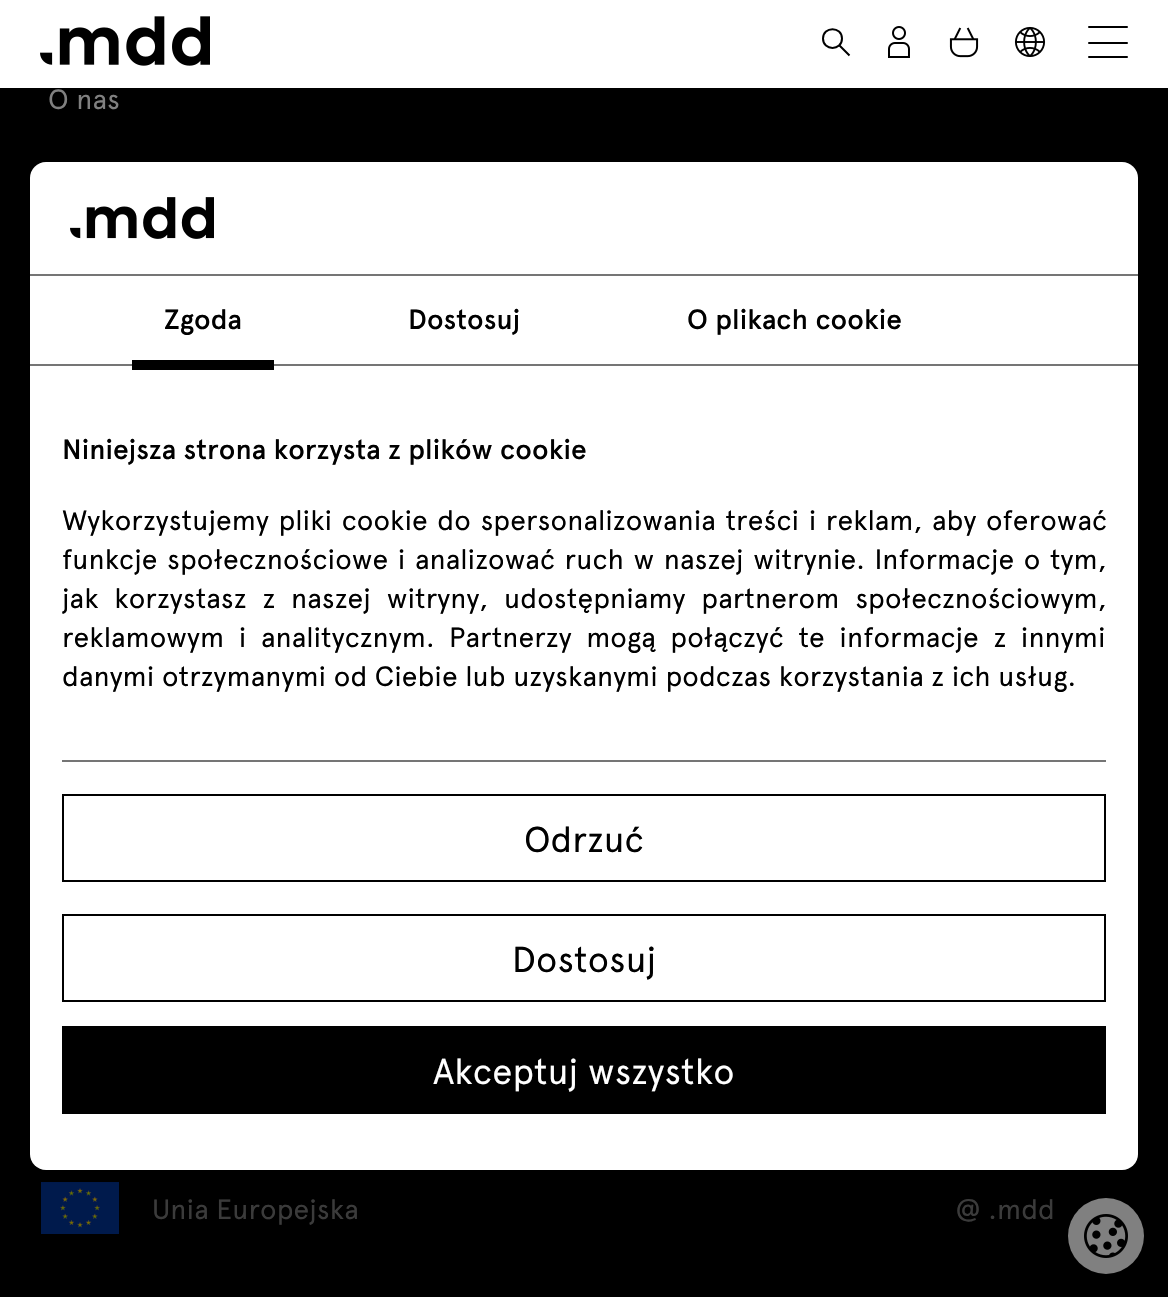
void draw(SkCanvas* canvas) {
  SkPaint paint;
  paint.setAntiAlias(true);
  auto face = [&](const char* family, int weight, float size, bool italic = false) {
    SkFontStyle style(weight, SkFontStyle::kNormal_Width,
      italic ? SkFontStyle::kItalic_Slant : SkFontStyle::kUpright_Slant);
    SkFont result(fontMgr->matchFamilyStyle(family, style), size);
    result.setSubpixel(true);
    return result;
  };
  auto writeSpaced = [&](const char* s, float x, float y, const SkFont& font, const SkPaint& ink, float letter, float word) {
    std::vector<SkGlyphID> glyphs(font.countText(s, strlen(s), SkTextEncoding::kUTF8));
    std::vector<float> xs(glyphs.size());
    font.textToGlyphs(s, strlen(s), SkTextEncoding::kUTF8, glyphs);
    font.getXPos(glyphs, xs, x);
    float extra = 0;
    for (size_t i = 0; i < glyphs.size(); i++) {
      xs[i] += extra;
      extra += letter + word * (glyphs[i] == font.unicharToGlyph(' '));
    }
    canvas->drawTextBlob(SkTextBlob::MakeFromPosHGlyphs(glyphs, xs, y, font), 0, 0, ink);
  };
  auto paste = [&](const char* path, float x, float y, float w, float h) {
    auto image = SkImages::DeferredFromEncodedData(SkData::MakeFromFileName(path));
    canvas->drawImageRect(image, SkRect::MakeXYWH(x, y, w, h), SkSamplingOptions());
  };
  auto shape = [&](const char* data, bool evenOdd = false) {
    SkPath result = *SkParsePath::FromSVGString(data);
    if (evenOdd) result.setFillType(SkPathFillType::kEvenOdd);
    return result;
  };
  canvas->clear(0xff000000);
  paint.setColor(0xffffffff);
  canvas->drawRect(SkRect::MakeXYWH(0, 0, 1168, 88), paint);
  paste("img/1.png", 40, 16, 170, 50);
  paint.setStroke(true);
  paint.setStrokeWidth(2);
  paint.setColor(0xff000000);
  canvas->drawPath(shape("M842 38.5C842 51 823 51 823 38.5C823 26 842 26 842 38.5ZM849.5 55.5L839.5 45.5"), paint);
  paste("img/2.png", 888, 26, 22, 32);
  paste("img/3.png", 949, 27, 30, 31);
  paste("img/4.png", 1014, 26, 32, 31);
  paint.setStroke(false);
  canvas->drawRoundRect(SkRect::MakeXYWH(1088, 26, 40, 2), 1, 1, paint);
  canvas->drawRoundRect(SkRect::MakeXYWH(1088, 42, 40, 2), 1, 1, paint);
  canvas->drawRoundRect(SkRect::MakeXYWH(1088, 56, 40, 2), 1, 1, paint);
  paste("img/5.png", 41, 1182, 78, 52);
  paint.setColor(0xffffffff);
  canvas->drawRoundRect(SkRect::MakeXYWH(30, 162, 1108, 1008), 16, 16, paint);
  paint.setColor(0xff757575);
  canvas->drawRect(SkRect::MakeXYWH(30, 274, 1108, 2), paint);
  paste("img/6.png", 70, 197, 144, 42);
  {
    const struct { float x, y, w, h; SkColor color; } items[] = {
      {30, 364, 1108, 2, 0xff757575},
      {132, 360, 142, 10, 0xff000000},
      {62, 760, 1044, 2, 0xff757575},
    };
    for (auto [x, y, w, h, color] : items) {
      paint.setColor(color);
      canvas->drawRect(SkRect::MakeXYWH(x, y, w, h), paint);
    }
  }
  paint.setStroke(true);
  paint.setColor(0xff000000);
  canvas->drawRect(SkRect::MakeXYWH(63, 795, 1042, 86), paint);
  canvas->drawRect(SkRect::MakeXYWH(63, 915, 1042, 86), paint);
  paint.setStroke(false);
  canvas->drawRect(SkRect::MakeXYWH(62, 1026, 1044, 88), paint);
  paint.setColor(0xff808080);
  canvas->drawCircle(1106, 1236, 38, paint);
  paste("img/7.png", 1084, 1214, 44, 44);
  auto f0 = face("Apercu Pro", 400, 28);
  writeSpaced("O nas", 48, 109, f0, paint, 0.05f, 0);
  paint.setColor(0xff3b3b3b);
  writeSpaced("Unia Europejska", 152, 1219, f0, paint, 0.05f, 0);
  writeSpaced("@ .mdd", 955, 1219, f0, paint, 0.05f, 0);
  auto f1 = face("Apercu Pro", 500, 28);
  paint.setColor(0xff000000);
  {
    const struct { const char* s; float x, y; } items[] = {
      {"Zgoda", 164, 329},
      {"Dostosuj", 408, 329},
      {"O plikach cookie", 687, 329},
      {"Niniejsza strona korzysta z plików cookie", 62, 459},
    };
    for (auto [s, x, y] : items) {
      writeSpaced(s, x, y, f1, paint, 0.05f, 0);
    }
  }
  writeSpaced("Wykorzystujemy pliki cookie do spersonalizowania treści i reklam, aby oferować", 62, 530, f0, paint, 0.05f, 2);
  writeSpaced("funkcje społecznościowe i analizować ruch w naszej witrynie. Informacje o tym,", 62, 569, f0, paint, 0.05f, 2);
  writeSpaced("jak korzystasz z naszej witryny, udostępniamy partnerom społecznościowym,", 62, 608, f0, paint, 0.05f, 8.25f);
  writeSpaced("reklamowym i analitycznym. Partnerzy mogą połączyć te informacje z innymi", 62, 647, f0, paint, 0.05f, 7);
  writeSpaced("danymi otrzymanymi od Ciebie lub uzyskanymi podczas korzystania z ich usług.", 62, 686, f0, paint, 0.05f, 0);
  auto f2 = face("Apercu Pro", 400, 36);
  writeSpaced("Odrzuć", 524, 852, f2, paint, 0.05f, 0);
  writeSpaced("Dostosuj", 512, 972, f2, paint, 0.05f, 0);
  paint.setColor(0xffffffff);
  writeSpaced("Akceptuj wszystko", 433, 1084, f2, paint, 0.05f, 0);
}
